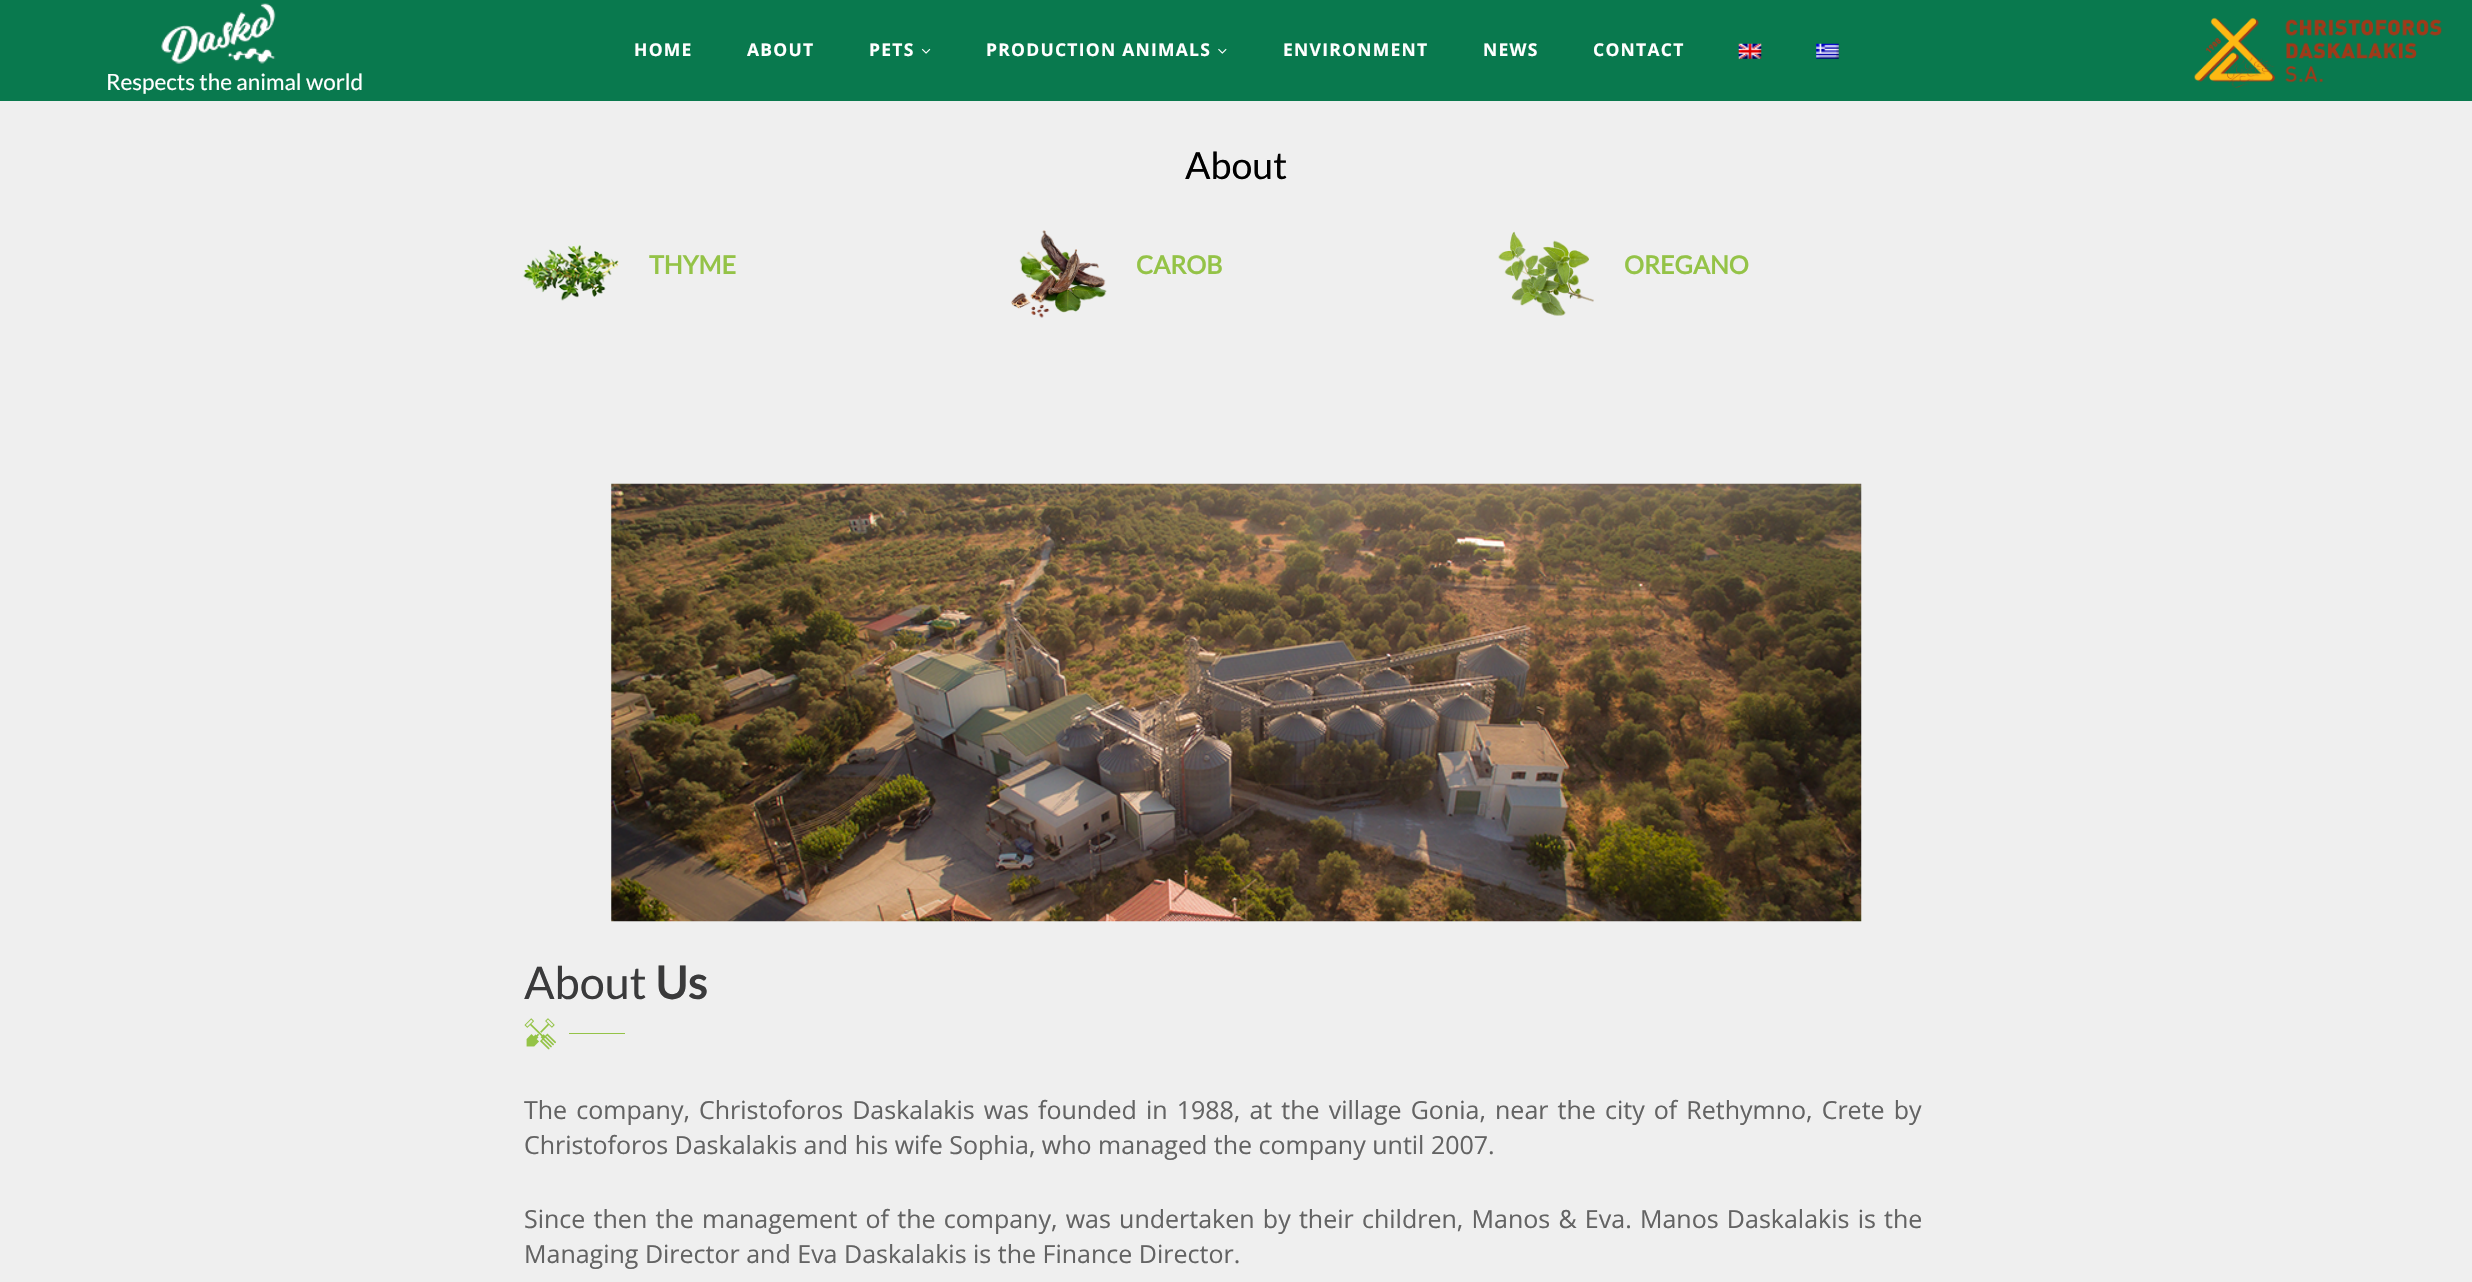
void draw(SkCanvas* canvas) {
  SkPaint paint;
  paint.setAntiAlias(true);
  auto face = [&](const char* family, int weight, float size, bool italic = false) {
    SkFontStyle style(weight, SkFontStyle::kNormal_Width,
      italic ? SkFontStyle::kItalic_Slant : SkFontStyle::kUpright_Slant);
    SkFont result(fontMgr->matchFamilyStyle(family, style), size);
    result.setSubpixel(true);
    return result;
  };
  auto writeSpaced = [&](const char* s, float x, float y, const SkFont& font, const SkPaint& ink, float letter, float word) {
    std::vector<SkGlyphID> glyphs(font.countText(s, strlen(s), SkTextEncoding::kUTF8));
    std::vector<float> xs(glyphs.size());
    font.textToGlyphs(s, strlen(s), SkTextEncoding::kUTF8, glyphs);
    font.getXPos(glyphs, xs, x);
    float extra = 0;
    for (size_t i = 0; i < glyphs.size(); i++) {
      xs[i] += extra;
      extra += letter + word * (glyphs[i] == font.unicharToGlyph(' '));
    }
    canvas->drawTextBlob(SkTextBlob::MakeFromPosHGlyphs(glyphs, xs, y, font), 0, 0, ink);
  };
  auto paste = [&](const char* path, float x, float y, float w, float h) {
    auto image = SkImages::DeferredFromEncodedData(SkData::MakeFromFileName(path));
    canvas->drawImageRect(image, SkRect::MakeXYWH(x, y, w, h), SkSamplingOptions());
  };
  canvas->clear(0xffefefef);
  paint.setColor(0xff09794e);
  canvas->drawRect(SkRect::MakeXYWH(0, 0, 2472, 101), paint);
  paste("img/1.png", 921, 48, 10, 6);
  paste("img/2.png", 1218, 48, 9, 6);
  paste("img/3.png", 1738, 43, 24, 16);
  paste("img/4.png", 1816, 43, 23, 16);
  paste("img/5.png", 2194, 17, 248, 71);
  paste("img/6.png", 161, 3, 115, 61);
  paste("img/7.png", 523, 244, 96, 57);
  paste("img/8.png", 1011, 230, 96, 88);
  paste("img/9.png", 1498, 231, 96, 85);
  paste("img/10.png", 611, 483, 1251, 439);
  paste("img/11.png", 524, 1018, 32, 32);
  paint.setColor(0xff94c347);
  canvas->drawRect(SkRect::MakeXYWH(569, 1033, 56, 1), paint);
  auto f0 = face("Open Sans", 700, 17.5f);
  paint.setColor(0xffffffff);
  {
    const struct { const char* s; float x, y; } items[] = {
      {"HOME", 634, 56},
      {"ABOUT", 747, 56},
      {"PETS", 869, 56},
      {"PRODUCTION ANIMALS", 986, 56},
      {"ENVIRONMENT", 1283, 56},
      {"NEWS", 1483, 56},
      {"CONTACT", 1593, 56},
    };
    for (auto [s, x, y] : items) {
      writeSpaced(s, x, y, f0, paint, 1.25f, 0);
    }
  }
  auto f1 = face("Lato", 400, 22.5f);
  canvas->drawString("Respects the animal world", 106, 90, f1, paint);
  auto f2 = face("Lato", 400, 37.5f);
  paint.setColor(0xff000000);
  canvas->drawString("About", 1185, 179, f2, paint);
  auto f3 = face("Lato", 700, 25);
  paint.setColor(0xff94c347);
  {
    const struct { const char* s; float x, y; } items[] = {
      {"THYME", 649, 274},
      {"CAROB", 1136, 274},
      {"OREGANO", 1624, 274},
    };
    for (auto [s, x, y] : items) {
      canvas->drawString(s, x, y, f3, paint);
    }
  }
  auto f4 = face("Lato", 400, 45);
  paint.setColor(0xff3a3a3b);
  canvas->drawString("About", 524, 999, f4, paint);
  auto f5 = face("Lato", 700, 45);
  canvas->drawString("Us", 655, 999, f5, paint);
  auto f6 = face("Open Sans", 400, 25);
  paint.setColor(0xff636363);
  writeSpaced("Τhe company, Christoforos Daskalakis was founded in 1988, at the village Gonia, near the city of Rethymno, Crete by", 524, 1119, f6, paint, 0, 2.6f);
  canvas->drawString("Christoforos Daskalakis and his wife Sophia, who managed the company until 2007.", 524, 1154, f6, paint);
  writeSpaced("Since then the management of the company, was undertaken by their children, Manos & Eva. Manos Daskalakis is the", 524, 1228, f6, paint, 0, 1.75f);
  canvas->drawString("Managing Director and Eva Daskalakis is the Finance Director.", 524, 1263, f6, paint);
  paint.setColor(0xffefefef);
  canvas->drawRect(SkRect::MakeXYWH(523, 1101, 1, 2), paint);
}
